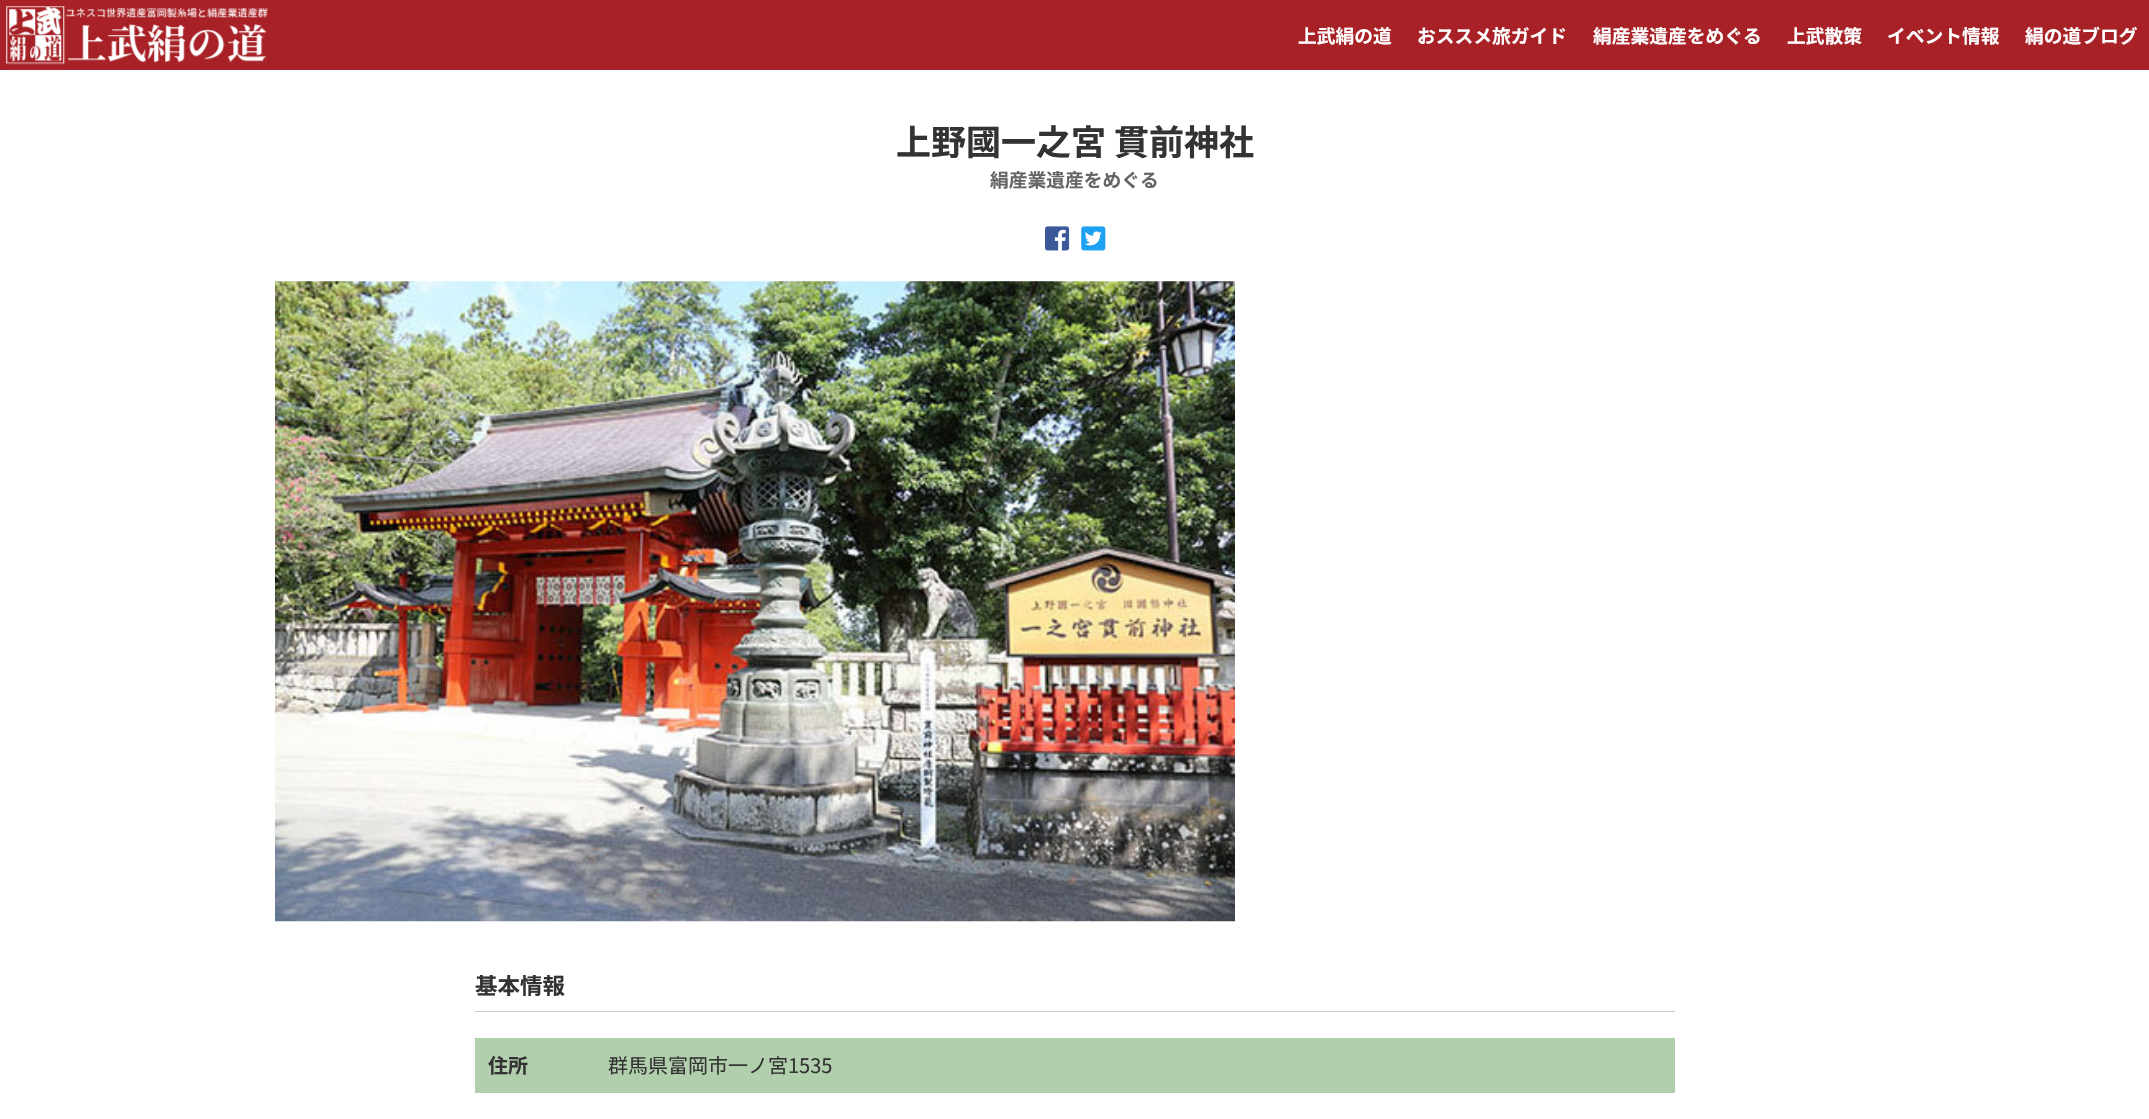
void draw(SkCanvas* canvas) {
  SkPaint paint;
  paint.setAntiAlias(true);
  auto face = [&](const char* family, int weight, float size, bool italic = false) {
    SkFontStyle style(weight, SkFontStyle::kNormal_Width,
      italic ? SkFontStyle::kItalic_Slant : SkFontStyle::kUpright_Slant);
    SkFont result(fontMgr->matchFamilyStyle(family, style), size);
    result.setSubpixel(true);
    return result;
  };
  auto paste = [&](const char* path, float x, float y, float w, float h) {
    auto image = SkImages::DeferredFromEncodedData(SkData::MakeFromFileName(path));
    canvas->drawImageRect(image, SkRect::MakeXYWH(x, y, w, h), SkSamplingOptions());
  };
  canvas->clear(0xffffffff);
  paint.setColor(0xffa72126);
  canvas->drawRect(SkRect::MakeXYWH(0, 0, 2149, 70), paint);
  paste("img/1.png", 6, 6, 262, 59);
  paste("img/2.png", 1045, 226, 25, 25);
  paste("img/3.png", 1081, 226, 25, 25);
  paste("img/4.png", 275, 281, 960, 641);
  paint.setColor(0xffcccccc);
  canvas->drawRect(SkRect::MakeXYWH(475, 1011, 1200, 1), paint);
  paint.setColor(0xffb2cfad);
  canvas->drawRect(SkRect::MakeXYWH(475, 1038, 1200, 55), paint);
  auto f0 = face("Noto Sans JP", 700, 18.75f);
  paint.setColor(0xffffffff);
  {
    const struct { const char* s; float x, y; } items[] = {
      {"上武絹の道", 1298, 43},
      {"おススメ旅ガイド", 1417, 43},
      {"絹産業遺産をめぐる", 1593, 43},
      {"上武散策", 1787, 43},
      {"イベント情報", 1887, 43},
      {"絹の道ブログ", 2025, 43},
    };
    for (auto [s, x, y] : items) {
      canvas->drawString(s, x, y, f0, paint);
    }
  }
  auto f1 = face("Noto Sans JP", 700, 35);
  paint.setColor(0xff333333);
  canvas->drawString("上野國一之宮 貫前神社", 896, 155, f1, paint);
  paint.setColor(0xff666666);
  canvas->drawString("絹産業遺産をめぐる", 990, 187, f0, paint);
  auto f2 = face("Noto Sans JP", 700, 22.5f);
  paint.setColor(0xff333333);
  canvas->drawString("基本情報", 475, 994, f2, paint);
  auto f3 = face("Noto Sans JP", 700, 20);
  canvas->drawString("住所", 488, 1073, f3, paint);
  auto f4 = face("Noto Sans JP", 400, 20);
  canvas->drawString("群馬県富岡市一ノ宮1535", 608, 1073, f4, paint);
}
